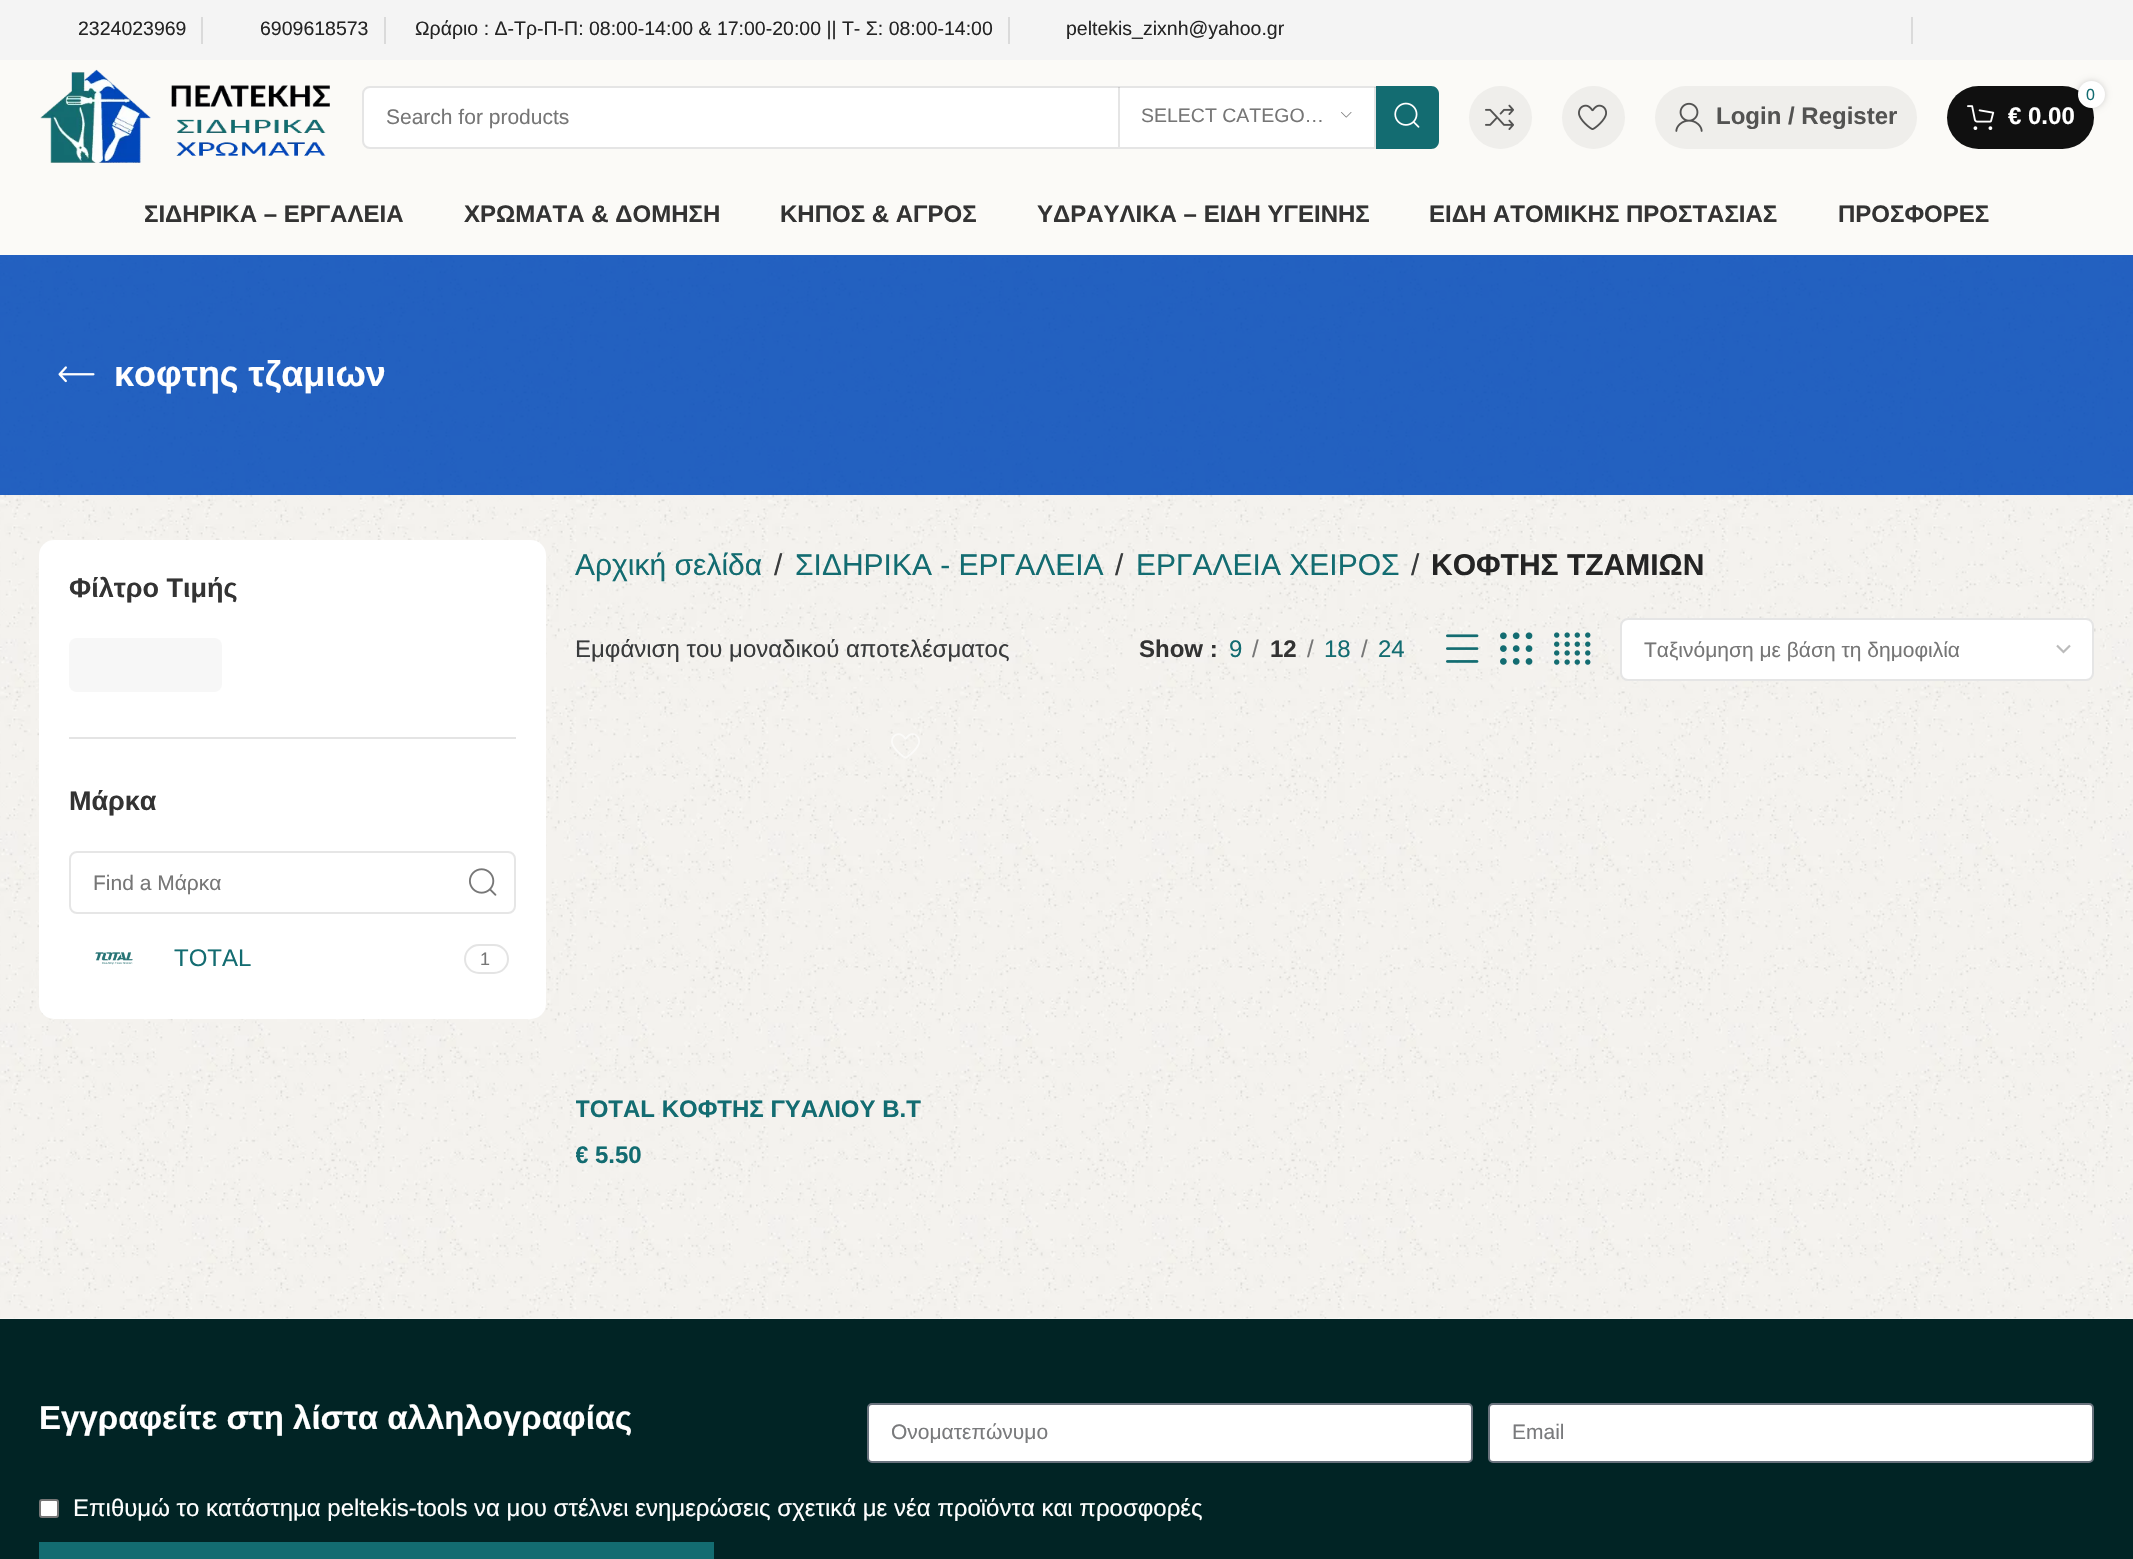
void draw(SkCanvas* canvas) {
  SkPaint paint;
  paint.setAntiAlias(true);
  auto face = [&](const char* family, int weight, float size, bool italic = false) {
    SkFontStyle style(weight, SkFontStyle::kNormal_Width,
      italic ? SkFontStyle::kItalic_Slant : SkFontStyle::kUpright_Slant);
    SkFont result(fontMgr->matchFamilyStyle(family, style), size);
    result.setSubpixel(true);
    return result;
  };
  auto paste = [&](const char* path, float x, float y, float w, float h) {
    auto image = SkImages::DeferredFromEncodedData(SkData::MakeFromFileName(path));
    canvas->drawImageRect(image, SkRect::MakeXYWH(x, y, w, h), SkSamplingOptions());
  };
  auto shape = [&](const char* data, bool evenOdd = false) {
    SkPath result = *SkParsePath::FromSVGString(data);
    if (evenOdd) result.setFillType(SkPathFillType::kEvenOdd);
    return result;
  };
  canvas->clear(0xffffffff);
  {
    const struct { float x, y, w, h; SkColor color; } items[] = {
      {0, 0, 2133, 60, 0xfff4f4f4},
      {201, 17, 2, 27, 0xffdadada},
      {384, 17, 2, 27, 0xffdadada},
      {1008, 17, 2, 27, 0xffdadada},
      {1911, 17, 2, 27, 0xffdadada},
      {0, 60, 2133, 195, 0xfffbfaf7},
    };
    for (auto [x, y, w, h, color] : items) {
      paint.setColor(color);
      canvas->drawRect(SkRect::MakeXYWH(x, y, w, h), paint);
    }
  }
  paste("img/1.png", 40, 69, 290, 94);
  paint.setColor(0xffffffff);
  canvas->drawRoundRect(SkRect::MakeXYWH(362, 86, 1077, 63), 8, 8, paint);
  paint.setStroke(true);
  paint.setStrokeWidth(2);
  paint.setColor(0x1a000000);
  canvas->drawRoundRect(SkRect::MakeXYWH(363, 87, 1075, 61), 7, 7, paint);
  paint.setStroke(false);
  canvas->drawRect(SkRect::MakeXYWH(1374, 87, 2, 60), paint);
  canvas->drawRect(SkRect::MakeXYWH(1118, 87, 2, 60), paint);
  paste("img/2.png", 1341, 112, 11, 6);
  paint.setColor(0xff136c71);
  canvas->drawPath(shape("M1376 86H1431C1435.5 86 1439 89.5 1439 94V141C1439 145.5 1435.5 149 1431 149H1376Z"), paint);
  paste("img/3.png", 1394, 102, 26, 26);
  paint.setColor(0xffefeeeb);
  canvas->drawCircle(1500.5f, 117.5f, 31.5f, paint);
  paste("img/4.png", 1485, 104, 29, 26);
  canvas->drawCircle(1593.5f, 117.5f, 31.5f, paint);
  paste("img/5.png", 1578, 104, 29, 26);
  canvas->drawRoundRect(SkRect::MakeXYWH(1655, 86, 262, 63), 31.5f, 31.5f, paint);
  paste("img/6.png", 1675, 102, 28, 30);
  paint.setColor(0xff101010);
  canvas->drawRoundRect(SkRect::MakeXYWH(1947, 86, 147, 63), 31.5f, 31.5f, paint);
  paint.setColor(0x2b000000);
  paint.setMaskFilter(SkMaskFilter::MakeBlur(kNormal_SkBlurStyle, 3));
  canvas->drawRoundRect(SkRect::MakeXYWH(2078, 81, 27, 27), 13.5f, 13.5f, paint);
  paint.setMaskFilter(nullptr);
  paint.setColor(0xffffffff);
  canvas->drawCircle(2091.5f, 94.5f, 13.5f, paint);
  paste("img/7.png", 1967, 105, 28, 25);
  paste("img/8.png", 0, 255, 2133, 1064);
  paint.setColor(0xdb0048b8);
  canvas->drawRect(SkRect::MakeXYWH(0, 255, 2133, 240), paint);
  paste("img/9.png", 58, 366, 37, 17);
  paint.setColor(0xffffffff);
  canvas->drawRoundRect(SkRect::MakeXYWH(39, 540, 507, 479), 15, 15, paint);
  paint.setColor(0xffe4e4e4);
  canvas->drawRect(SkRect::MakeXYWH(69, 737, 447, 2), paint);
  paint.setColor(0xfff7f7f7);
  canvas->drawRoundRect(SkRect::MakeXYWH(69, 638, 153, 54), 8, 8, paint);
  paint.setStroke(true);
  paint.setColor(0xffe6e6e6);
  canvas->drawRoundRect(SkRect::MakeXYWH(70, 852, 445, 61), 7, 7, paint);
  paste("img/10.png", 469, 868, 28, 28);
  paste("img/11.png", 95, 952, 38, 13);
  paint.setColor(0xffe4e4e4);
  canvas->drawRoundRect(SkRect::MakeXYWH(465, 945, 43, 28), 14, 14, paint);
  paste("img/12.png", 1446, 634, 33, 29);
  paste("img/13.png", 1500, 632, 33, 33);
  paste("img/14.png", 1554, 632, 37, 33);
  paint.setStroke(false);
  paint.setColor(0xffffffff);
  canvas->drawRoundRect(SkRect::MakeXYWH(1620, 618, 474, 63), 8, 8, paint);
  paint.setStroke(true);
  paint.setStrokeWidth(2.2f);
  paint.setColor(0xffbbbbbb);
  canvas->drawPath(shape("M2057 645.5L2063.5 652L2070 645.5"), paint);
  paint.setStrokeWidth(2);
  paint.setColor(0x1a000000);
  canvas->drawRoundRect(SkRect::MakeXYWH(1621, 619, 472, 61), 7, 7, paint);
  paste("img/15.png", 891, 733, 29, 26);
  paint.setStroke(false);
  paint.setColor(0xff012425);
  canvas->drawRect(SkRect::MakeXYWH(0, 1319, 2133, 240), paint);
  paint.setColor(0xffffffff);
  canvas->drawRoundRect(SkRect::MakeXYWH(868, 1404, 604, 58), 4, 4, paint);
  paint.setStroke(true);
  paint.setColor(0xff69727d);
  canvas->drawRoundRect(SkRect::MakeXYWH(868, 1404, 604, 58), 4, 4, paint);
  paint.setStroke(false);
  paint.setColor(0xffffffff);
  canvas->drawRoundRect(SkRect::MakeXYWH(1489, 1404, 604, 58), 4, 4, paint);
  paint.setStroke(true);
  paint.setColor(0xff69727d);
  canvas->drawRoundRect(SkRect::MakeXYWH(1489, 1404, 604, 58), 4, 4, paint);
  paint.setStroke(false);
  paint.setColor(0xffffffff);
  canvas->drawRoundRect(SkRect::MakeXYWH(40, 1500, 18, 17), 2, 2, paint);
  paint.setStroke(true);
  paint.setColor(0xff767676);
  canvas->drawRoundRect(SkRect::MakeXYWH(40, 1500, 18, 17), 2, 2, paint);
  paint.setStroke(false);
  paint.setColor(0xff136c71);
  canvas->drawRect(SkRect::MakeXYWH(39, 1542, 675, 17), paint);
  auto f0 = face("Liberation Sans", 400, 19.5f);
  paint.setColor(0xff242424);
  {
    const struct { const char* s; float x, y; } items[] = {
      {"2324023969", 78, 35},
      {"6909618573", 260, 35},
      {"Ωράριο : Δ-Τρ-Π-Π: 08:00-14:00 & 17:00-20:00 || Τ- Σ: 08:00-14:00", 415, 35},
      {"peltekis_zixnh@yahoo.gr", 1066, 35},
    };
    for (auto [s, x, y] : items) {
      canvas->drawString(s, x, y, f0, paint);
    }
  }
  auto f1 = face("Liberation Sans", 400, 21);
  paint.setColor(0xff767676);
  canvas->drawString("Search for products", 386, 124, f1, paint);
  canvas->drawString("SELECT CATEGO…", 1141, 122, f0, paint);
  auto f2 = face("Liberation Sans", 700, 24);
  paint.setColor(0xff535352);
  canvas->drawString("Login / Register", 1716, 124, f2, paint);
  auto f3 = face("Liberation Sans", 400, 16);
  paint.setColor(0xff136c71);
  canvas->drawString("0", 2086, 100, f3, paint);
  paint.setColor(0xffffffff);
  canvas->drawString("€ 0.00", 2008, 124, f2, paint);
  paint.setColor(0xff333333);
  {
    const struct { const char* s; float x, y; } items[] = {
      {"ΣΙΔΗΡΙΚΑ – ΕΡΓΑΛΕΙΑ", 144, 222},
      {"ΧΡΩΜΑΤΑ & ΔΟΜΗΣΗ", 464, 222},
      {"ΚΗΠΟΣ & ΑΓΡΟΣ", 780, 222},
      {"ΥΔΡΑΥΛΙΚΑ – ΕΙΔΗ ΥΓΕΙΝΗΣ", 1037, 222},
      {"ΕΙΔΗ ΑΤΟΜΙΚΗΣ ΠΡΟΣΤΑΣΙΑΣ", 1429, 222},
      {"ΠΡΟΣΦΟΡΕΣ", 1838, 222},
    };
    for (auto [s, x, y] : items) {
      canvas->drawString(s, x, y, f2, paint);
    }
  }
  auto f4 = face("Liberation Sans", 700, 36);
  paint.setColor(0xffffffff);
  canvas->drawString("κοφτης τζαμιων", 114, 386, f4, paint);
  auto f5 = face("Liberation Sans", 700, 27);
  paint.setColor(0xff333333);
  canvas->drawString("Φίλτρο Τιμής", 69, 597, f5, paint);
  canvas->drawString("Μάρκα", 69, 810, f5, paint);
  paint.setColor(0xff767676);
  canvas->drawString("Find a Μάρκα", 93, 890, f1, paint);
  auto f6 = face("Liberation Sans", 400, 24);
  paint.setColor(0xff136c71);
  canvas->drawString("TOTAL", 174, 966, f6, paint);
  auto f7 = face("Liberation Sans", 400, 18);
  paint.setColor(0xff767676);
  canvas->drawString("1", 480, 965, f7, paint);
  auto f8 = face("Liberation Sans", 400, 30);
  paint.setColor(0xff136c71);
  canvas->drawString("Αρχική σελίδα", 575, 575, f8, paint);
  paint.setColor(0xff393b3c);
  canvas->drawString("/", 774, 575, f8, paint);
  paint.setColor(0xff136c71);
  canvas->drawString("ΣΙΔΗΡΙΚΑ - ΕΡΓΑΛΕΙΑ", 795, 575, f8, paint);
  paint.setColor(0xff393b3c);
  canvas->drawString("/", 1115, 575, f8, paint);
  paint.setColor(0xff136c71);
  canvas->drawString("ΕΡΓΑΛΕΙΑ ΧΕΙΡΟΣ", 1136, 575, f8, paint);
  paint.setColor(0xff393b3c);
  canvas->drawString("/", 1411, 575, f8, paint);
  auto f9 = face("Liberation Sans", 700, 30);
  paint.setColor(0xff242424);
  canvas->drawString("ΚΟΦΤΗΣ ΤΖΑΜΙΩΝ", 1431, 575, f9, paint);
  paint.setColor(0xff393b3c);
  canvas->drawString("Εμφάνιση του μοναδικού αποτελέσματος", 575, 657, f6, paint);
  paint.setColor(0xff333333);
  canvas->drawString("Show :", 1139, 657, f2, paint);
  paint.setColor(0xff136c71);
  canvas->drawString("9", 1229, 657, f6, paint);
  paint.setColor(0xff767676);
  canvas->drawString("/", 1252, 657, f6, paint);
  paint.setColor(0xff333333);
  canvas->drawString("12", 1270, 657, f2, paint);
  paint.setColor(0xff767676);
  canvas->drawString("/", 1307, 657, f6, paint);
  paint.setColor(0xff136c71);
  canvas->drawString("18", 1324, 657, f6, paint);
  paint.setColor(0xff767676);
  canvas->drawString("/", 1361, 657, f6, paint);
  paint.setColor(0xff136c71);
  canvas->drawString("24", 1378, 657, f6, paint);
  paint.setColor(0xff767676);
  canvas->drawString("Ταξινόμηση με βάση τη δημοφιλία", 1644, 657, f1, paint);
  canvas->save();
  canvas->clipRect(SkRect::MakeXYWH(576, 1092, 368, 35));
  paint.setColor(0xff136c71);
  canvas->drawString("TOTAL ΚΟΦΤΗΣ ΓΥΑΛΙΟΥ Β.Τ", 575, 1117, f2, paint);
  canvas->restore();
  canvas->save();
  canvas->clipRect(SkRect::MakeXYWH(576, 711, 368, 458));
  canvas->drawString("€", 575, 1163, f2, paint);
  canvas->restore();
  canvas->drawString("5.50", 595, 1163, f2, paint);
  auto f10 = face("Liberation Sans", 700, 33);
  paint.setColor(0xffffffff);
  canvas->drawString("Εγγραφείτε στη λίστα αλληλογραφίας", 39, 1429, f10, paint);
  paint.setColor(0xff797a7c);
  canvas->drawString("Ονοματεπώνυμο", 891, 1439, f1, paint);
  canvas->drawString("Email", 1512, 1439, f1, paint);
  paint.setColor(0xffffffff);
  canvas->drawString("Επιθυμώ το κατάστημα peltekis-tools να μου στέλνει ενημερώσεις σχετικά με νέα προϊόντα και προσφορές", 73, 1516, f6, paint);
}
